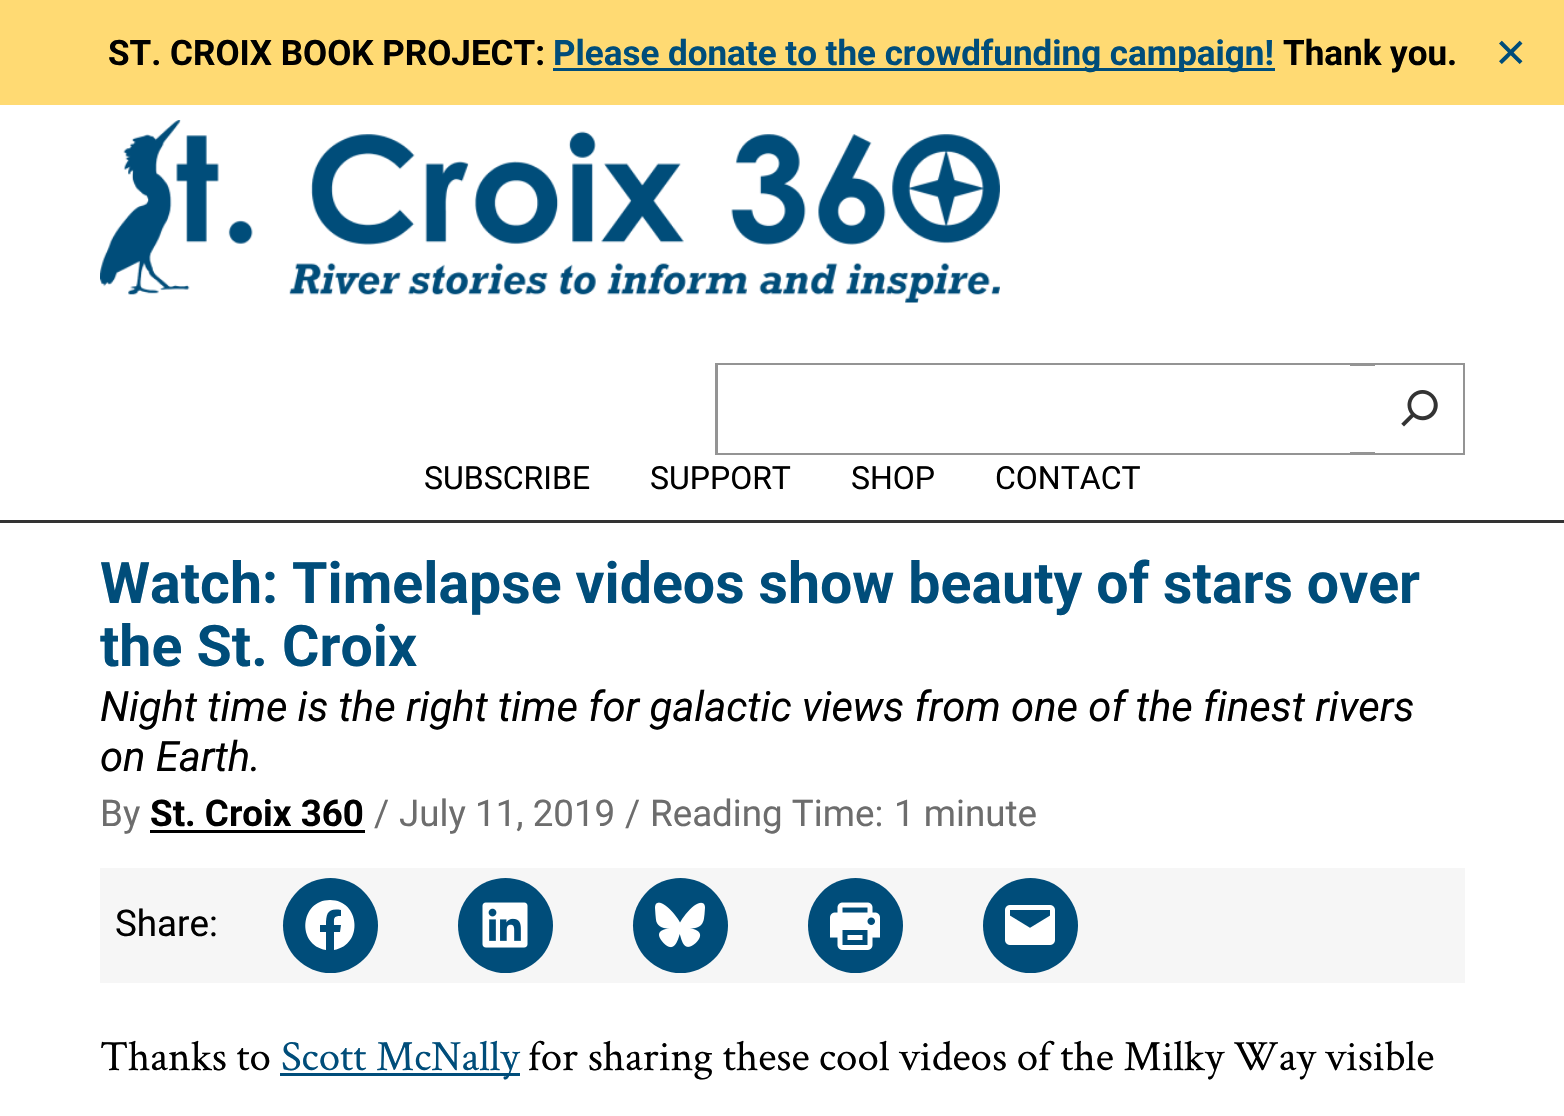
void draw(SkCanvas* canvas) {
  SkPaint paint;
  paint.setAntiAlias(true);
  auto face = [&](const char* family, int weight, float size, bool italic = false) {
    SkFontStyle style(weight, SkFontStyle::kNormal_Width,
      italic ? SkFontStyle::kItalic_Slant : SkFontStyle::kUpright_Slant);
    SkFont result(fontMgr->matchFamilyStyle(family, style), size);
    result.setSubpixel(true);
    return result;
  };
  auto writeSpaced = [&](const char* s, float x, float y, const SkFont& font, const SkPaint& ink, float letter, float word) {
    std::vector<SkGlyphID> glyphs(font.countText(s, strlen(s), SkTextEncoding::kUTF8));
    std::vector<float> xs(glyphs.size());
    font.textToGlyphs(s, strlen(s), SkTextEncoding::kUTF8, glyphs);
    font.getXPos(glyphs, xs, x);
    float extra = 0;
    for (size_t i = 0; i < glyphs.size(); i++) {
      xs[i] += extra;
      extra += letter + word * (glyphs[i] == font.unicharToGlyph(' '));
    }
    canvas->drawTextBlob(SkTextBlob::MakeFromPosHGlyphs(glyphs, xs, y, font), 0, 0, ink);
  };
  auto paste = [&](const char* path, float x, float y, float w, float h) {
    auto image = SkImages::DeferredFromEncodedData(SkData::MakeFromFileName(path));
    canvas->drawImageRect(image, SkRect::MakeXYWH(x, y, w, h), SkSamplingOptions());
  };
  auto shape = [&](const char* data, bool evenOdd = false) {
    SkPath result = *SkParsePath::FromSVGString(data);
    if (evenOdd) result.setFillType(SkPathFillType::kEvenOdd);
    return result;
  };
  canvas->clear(0xffffffff);
  {
    const struct { float x, y, w, h; SkColor color; } items[] = {
      {0, 0, 1564, 105, 0xffffda73},
      {553, 68, 722, 3, 0xff004d7a},
      {0, 520, 1564, 3, 0xff333333},
    };
    for (auto [x, y, w, h, color] : items) {
      paint.setColor(color);
      canvas->drawRect(SkRect::MakeXYWH(x, y, w, h), paint);
    }
  }
  paste("img/1.png", 100, 120, 900, 183);
  paint.setStroke(true);
  paint.setStrokeWidth(3);
  paint.setColor(0xff949494);
  canvas->drawRect(SkRect::MakeXYWH(716.5f, 364.5f, 747, 89), paint);
  paint.setStroke(false);
  paint.setColor(0xffffffff);
  canvas->drawRect(SkRect::MakeXYWH(718, 365, 632, 88), paint);
  canvas->drawRect(SkRect::MakeXYWH(1375, 365, 88, 88), paint);
  paste("img/2.png", 1401, 390, 37, 37);
  paint.setColor(0xff000000);
  canvas->drawRect(SkRect::MakeXYWH(150, 830, 215, 3), paint);
  paint.setColor(0xfff6f6f6);
  canvas->drawRect(SkRect::MakeXYWH(100, 868, 1365, 115), paint);
  paint.setColor(0xff004d7a);
  canvas->drawCircle(330.5f, 925.5f, 47.5f, paint);
  paint.setColor(0xffffffff);
  canvas->drawPath(shape("M330 900C300 900 296 945 326 950V932H320V925H326C326 913 328 908 341 910V916C333 916 334 918 334 925H341L340 932H334V950C364 945 360 900 330 900Z"), paint);
  paint.setColor(0xff004d7a);
  canvas->drawCircle(505.5f, 925.5f, 47.5f, paint);
  paste("img/3.png", 482, 902, 46, 46);
  canvas->drawCircle(680.5f, 925.5f, 47.5f, paint);
  paste("img/4.png", 655, 902, 50, 46);
  canvas->drawCircle(855.5f, 925.5f, 47.5f, paint);
  paste("img/5.png", 830, 902, 50, 48);
  canvas->drawCircle(1030.5f, 925.5f, 47.5f, paint);
  paste("img/6.png", 1005, 905, 50, 40);
  canvas->drawRect(SkRect::MakeXYWH(280, 1073, 240, 3), paint);
  auto f0 = face("Roboto", 700, 35);
  paint.setColor(0xff000000);
  canvas->drawString("ST. CROIX BOOK PROJECT:", 108, 65, f0, paint);
  paint.setColor(0xff004d7a);
  canvas->drawString("Please donate to the crowdfunding campaign!", 553, 65, f0, paint);
  paint.setColor(0xff000000);
  canvas->drawString("Thank you.", 1283, 65, f0, paint);
  auto f1 = face("DejaVu Sans", 400, 40);
  paint.setColor(0xff004d7a);
  canvas->drawString("✕", 1494, 67, f1, paint);
  auto f2 = face("Roboto", 400, 32);
  paint.setColor(0xff000000);
  {
    const struct { const char* s; float x, y; } items[] = {
      {"SUBSCRIBE", 424, 489},
      {"SUPPORT", 650, 489},
      {"SHOP", 851, 489},
      {"CONTACT", 995, 489},
    };
    for (auto [s, x, y] : items) {
      canvas->drawString(s, x, y, f2, paint);
    }
  }
  auto f3 = face("Roboto", 700, 57.25f);
  paint.setColor(0xff004d7a);
  writeSpaced("Watch: Timelapse videos show beauty of stars over", 100, 603, f3, paint, 0, -0.25f);
  canvas->drawString("the St. Croix", 100, 666, f3, paint);
  auto f4 = face("Roboto", 400, 41.75f, true);
  paint.setColor(0xff000000);
  canvas->drawString("Night time is the right time for galactic views from one of the finest rivers", 100, 721, f4, paint);
  canvas->drawString("on Earth.", 100, 771, f4, paint);
  auto f5 = face("Roboto", 400, 36.75f);
  paint.setColor(0xff6d6d6d);
  canvas->drawString("By", 100, 826, f5, paint);
  auto f6 = face("Roboto", 700, 36.75f);
  paint.setColor(0xff000000);
  canvas->drawString("St. Croix 360", 150, 826, f6, paint);
  paint.setColor(0xff6d6d6d);
  {
    const struct { const char* s; float x, y; } items[] = {
      {"/", 374, 826},
      {"July 11, 2019", 399, 826},
      {"/", 625, 826},
      {"Reading Time:", 650, 826},
      {"1 minute", 894, 826},
    };
    for (auto [s, x, y] : items) {
      canvas->drawString(s, x, y, f5, paint);
    }
  }
  paint.setColor(0xff000000);
  canvas->drawString("Share:", 115, 936, f5, paint);
  auto f7 = face("Crimson Text", 400, 43);
  canvas->drawString("Thanks to", 100, 1070, f7, paint);
  paint.setColor(0xff004d7a);
  canvas->drawString("Scott McNally", 281, 1070, f7, paint);
  paint.setColor(0xff000000);
  canvas->drawString("for sharing these cool videos of the Milky Way visible", 528, 1070, f7, paint);
}
